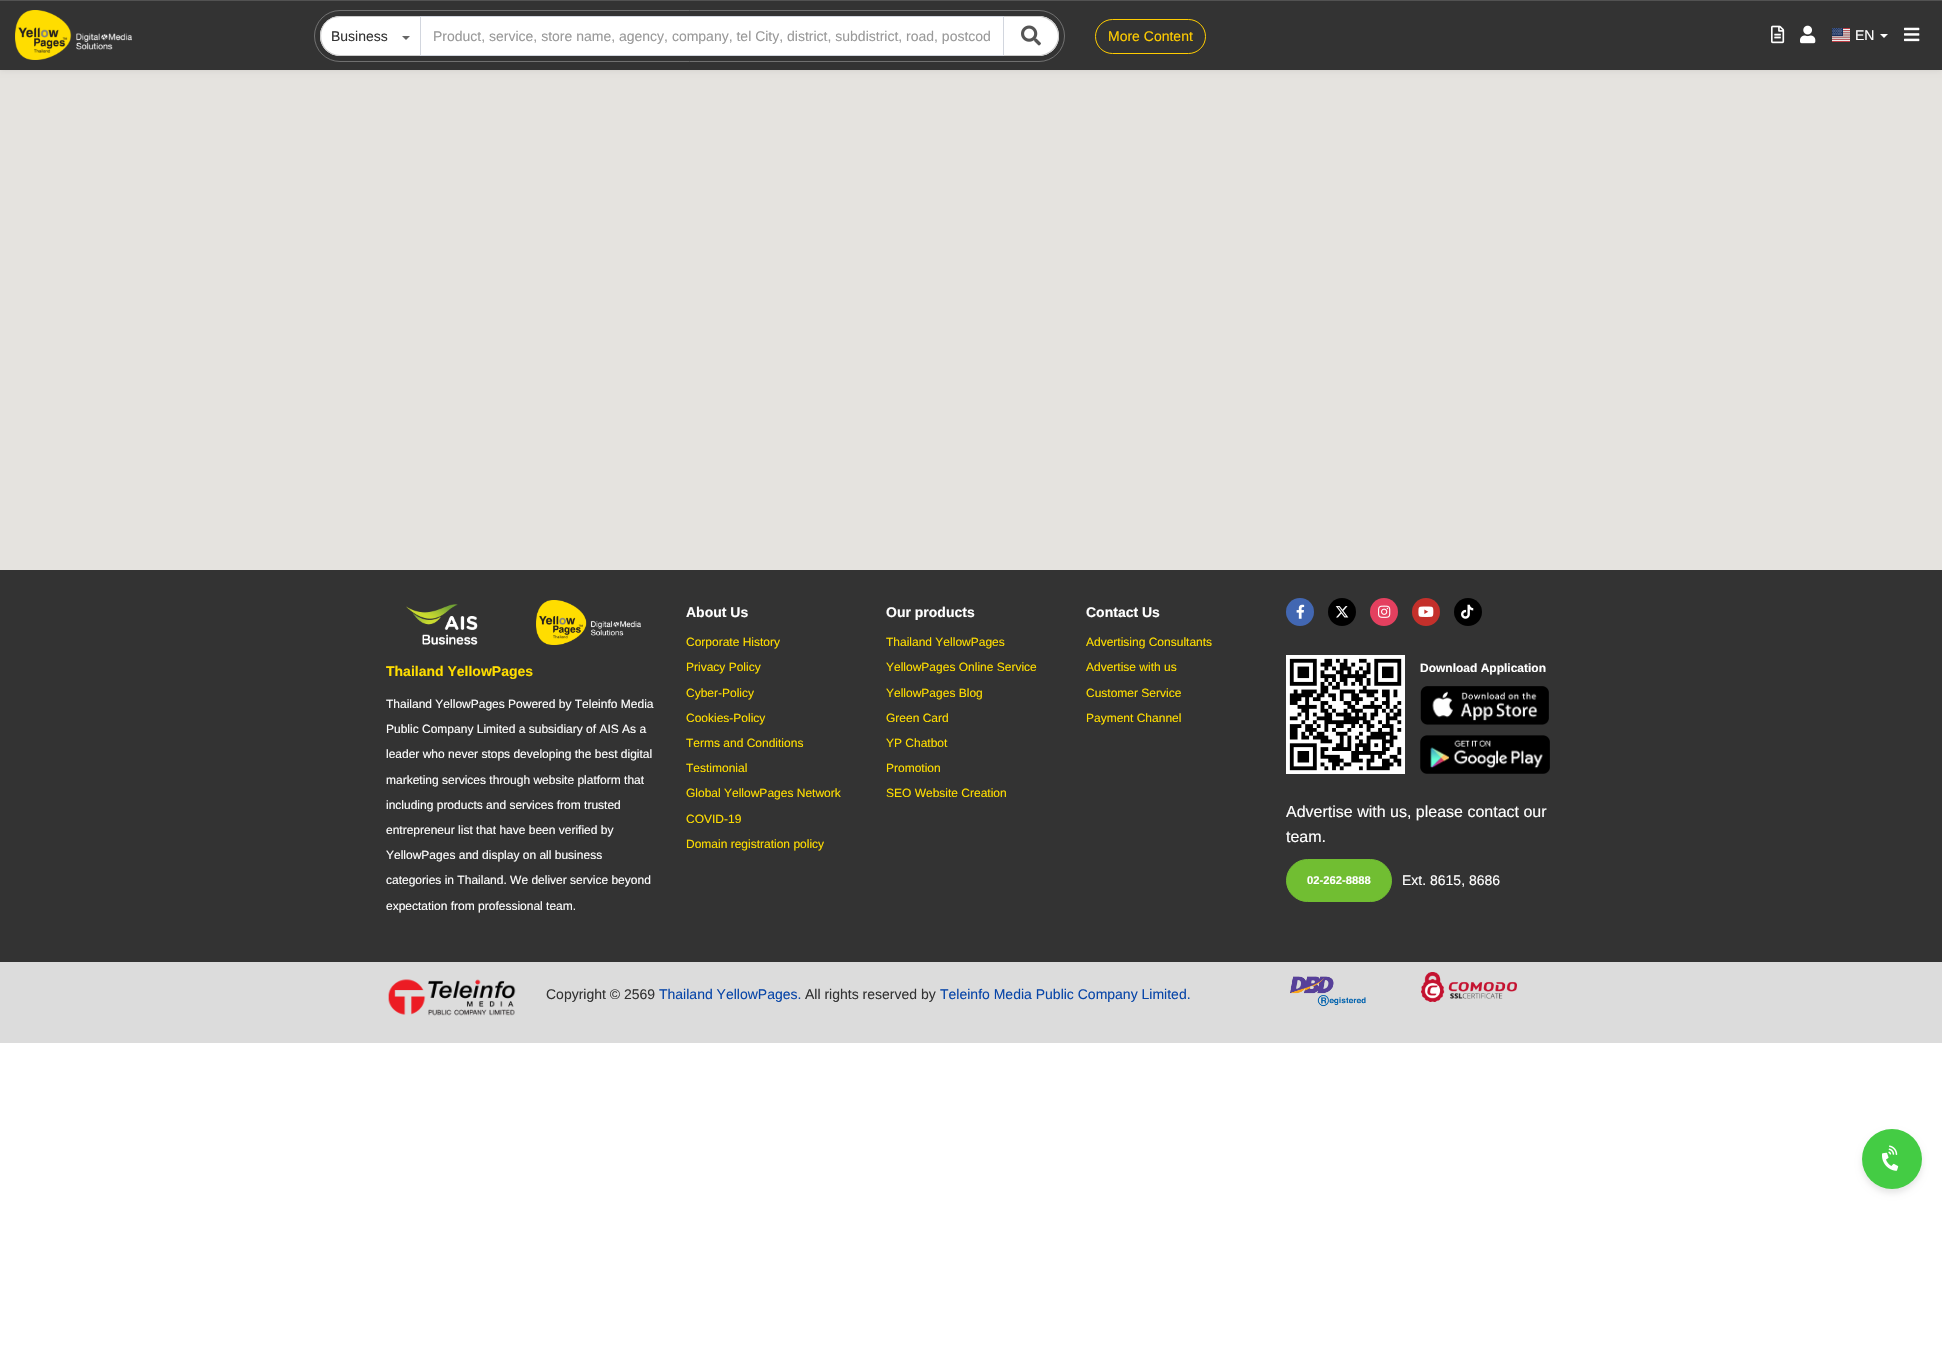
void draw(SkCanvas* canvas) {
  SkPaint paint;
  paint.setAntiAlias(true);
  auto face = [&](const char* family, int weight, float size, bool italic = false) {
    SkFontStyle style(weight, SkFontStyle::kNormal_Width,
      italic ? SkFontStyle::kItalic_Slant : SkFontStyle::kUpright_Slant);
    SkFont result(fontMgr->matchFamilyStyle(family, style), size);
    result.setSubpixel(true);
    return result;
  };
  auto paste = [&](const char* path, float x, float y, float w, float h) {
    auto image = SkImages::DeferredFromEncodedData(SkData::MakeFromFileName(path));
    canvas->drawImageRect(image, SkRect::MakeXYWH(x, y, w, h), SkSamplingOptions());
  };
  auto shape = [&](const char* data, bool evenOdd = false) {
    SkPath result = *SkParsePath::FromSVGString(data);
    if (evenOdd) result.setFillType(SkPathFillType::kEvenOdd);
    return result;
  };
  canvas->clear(0xffffffff);
  paint.setColor(0xffe5e3df);
  canvas->drawRect(SkRect::MakeXYWH(0, 70, 1942, 500), paint);
  paint.setColor(0x12000000);
  paint.setMaskFilter(SkMaskFilter::MakeBlur(kNormal_SkBlurStyle, 2.5f));
  canvas->drawRect(SkRect::MakeXYWH(0, 1, 1942, 70), paint);
  paint.setMaskFilter(nullptr);
  paint.setColor(0xff333333);
  canvas->drawRect(SkRect::MakeXYWH(0, 1, 1942, 69), paint);
  paint.setColor(0xff525252);
  canvas->drawRect(SkRect::MakeXYWH(0, 0, 1942, 1), paint);
  paste("img/1.png", 15, 10, 117, 50);
  paint.setStroke(true);
  paint.setStrokeWidth(1);
  paint.setColor(0xff707070);
  canvas->drawRoundRect(SkRect::MakeXYWH(314.5f, 10.5f, 750, 51), 25.5f, 25.5f, paint);
  paint.setStroke(false);
  paint.setColor(0xffffffff);
  canvas->drawPath(shape("M340 16H420V56H340C329 56 320 47 320 36C320 25 329 16 340 16Z"), paint);
  paint.setColor(0xffcccccc);
  canvas->drawPath(shape("M340 16H420V56H340C329 56 320 47 320 36C320 25 329 16 340 16ZM340 17H420V55H340C315 54 315 17 340 17Z", true), paint);
  paint.setColor(0xff666666);
  canvas->drawPath(shape("M402 36H410L406 40Z"), paint);
  paint.setColor(0xffffffff);
  canvas->drawRect(SkRect::MakeXYWH(420.5f, 16.5f, 583, 39), paint);
  paint.setStroke(true);
  paint.setColor(0xffd2d6de);
  canvas->drawRect(SkRect::MakeXYWH(420.5f, 16.5f, 583, 39), paint);
  paint.setStroke(false);
  paint.setColor(0xffffffff);
  canvas->drawPath(shape("M1004 16H1039C1050 16 1059 25 1059 36C1059 47 1050 56 1039 56H1004Z"), paint);
  paint.setColor(0xffcccccc);
  canvas->drawPath(shape("M1004 16H1039C1050 16 1059 25 1059 36C1059 47 1050 56 1039 56H1004ZM1004 17H1039C1049 17 1058 26 1058 36C1058 46 1049 55 1039 55H1004Z", true), paint);
  paste("img/2.png", 1021, 25, 20, 21);
  paint.setStroke(true);
  paint.setColor(0xffffcc00);
  canvas->drawRoundRect(SkRect::MakeXYWH(1095.5f, 19.5f, 110, 34), 17, 17, paint);
  paste("img/3.png", 1771, 25, 14, 19);
  paste("img/4.png", 1800, 25, 16, 19);
  paste("img/5.png", 1832, 28, 18, 14);
  paint.setStroke(false);
  paint.setColor(0xffffffff);
  canvas->drawPath(shape("M1880 34H1888L1884 38Z"), paint);
  paste("img/6.png", 1904, 27, 16, 15);
  paint.setColor(0xff333333);
  canvas->drawRect(SkRect::MakeXYWH(0, 570, 1942, 392), paint);
  paste("img/7.png", 406, 604, 72, 41);
  paste("img/8.png", 536, 600, 105, 45);
  paint.setColor(0xff4267b2);
  canvas->drawCircle(1300, 612, 14, paint);
  paste("img/9.png", 1296, 604, 9, 15);
  paint.setColor(0xff000000);
  canvas->drawCircle(1342, 612, 14, paint);
  paste("img/10.png", 1335, 606, 14, 12);
  paint.setColor(0xffe4405f);
  canvas->drawCircle(1384, 612, 14, paint);
  paste("img/11.png", 1378, 605, 13, 13);
  paint.setColor(0xffc4302b);
  canvas->drawCircle(1426, 612, 14, paint);
  paste("img/12.png", 1418, 606, 16, 11);
  paint.setColor(0xff000000);
  canvas->drawCircle(1468, 612, 14, paint);
  paste("img/13.png", 1461, 604, 13, 15);
  paste("img/14.png", 1286, 655, 119, 119);
  paste("img/15.png", 1420, 686, 129, 39);
  paste("img/16.png", 1420, 735, 130, 39);
  paint.setColor(0xff71be32);
  canvas->drawRoundRect(SkRect::MakeXYWH(1286.5f, 859.5f, 105, 42), 21, 21, paint);
  paint.setStroke(true);
  canvas->drawRoundRect(SkRect::MakeXYWH(1286.5f, 859.5f, 105, 42), 21, 21, paint);
  paint.setStroke(false);
  paint.setColor(0xffdcdcdc);
  canvas->drawRect(SkRect::MakeXYWH(0, 962, 1942, 81), paint);
  paste("img/17.png", 388, 979, 128, 37);
  paste("img/18.png", 1290, 976, 76, 31);
  paste("img/19.png", 1421, 972, 96, 30);
  paint.setColor(0x1a000000);
  paint.setMaskFilter(SkMaskFilter::MakeBlur(kNormal_SkBlurStyle, 3));
  canvas->drawRoundRect(SkRect::MakeXYWH(1862, 1133, 60, 60), 30, 30, paint);
  paint.setMaskFilter(nullptr);
  paint.setColor(0xff44cc44);
  canvas->drawCircle(1892, 1159, 30, paint);
  paste("img/20.png", 1882, 1145, 17, 26);
  auto f0 = face("Liberation Sans", 400, 14);
  paint.setColor(0xff333333);
  canvas->drawString("Business", 331, 41, f0, paint);
  paint.setColor(0xff999999);
  canvas->drawString("Product, service, store name, agency, company, tel City, district, subdistrict, road, postcod", 433, 41, f0, paint);
  paint.setColor(0xffffcc00);
  canvas->drawString("More Content", 1108, 41, f0, paint);
  paint.setColor(0xffffffff);
  canvas->drawString("EN", 1855, 40, f0, paint);
  auto f1 = face("Liberation Sans", 700, 14);
  paint.setColor(0xffffdd00);
  canvas->drawString("Thailand YellowPages", 386, 676, f1, paint);
  auto f2 = face("Liberation Sans", 400, 12);
  paint.setColor(0xffffffff);
  {
    const struct { const char* s; float x, y; } items[] = {
      {"Thailand YellowPages Powered by Teleinfo Media", 386, 708},
      {"Public Company Limited a subsidiary of AIS As a", 386, 733},
      {"leader who never stops developing the best digital", 386, 758},
      {"marketing services through website platform that", 386, 784},
      {"including products and services from trusted", 386, 809},
      {"entrepreneur list that have been verified by", 386, 834},
      {"YellowPages and display on all business", 386, 859},
      {"categories in Thailand. We deliver service beyond", 386, 884},
      {"expectation from professional team.", 386, 910},
    };
    for (auto [s, x, y] : items) {
      canvas->drawString(s, x, y, f2, paint);
    }
  }
  canvas->drawString("About Us", 686, 617, f1, paint);
  paint.setColor(0xffffdd00);
  {
    const struct { const char* s; float x, y; } items[] = {
      {"Corporate History", 686, 646},
      {"Privacy Policy", 686, 671},
      {"Cyber-Policy", 686, 697},
      {"Cookies-Policy", 686, 722},
      {"Terms and Conditions", 686, 747},
      {"Testimonial", 686, 772},
      {"Global YellowPages Network", 686, 797},
      {"COVID-19", 686, 823},
      {"Domain registration policy", 686, 848},
    };
    for (auto [s, x, y] : items) {
      canvas->drawString(s, x, y, f2, paint);
    }
  }
  paint.setColor(0xffffffff);
  canvas->drawString("Our products", 886, 617, f1, paint);
  paint.setColor(0xffffdd00);
  {
    const struct { const char* s; float x, y; } items[] = {
      {"Thailand YellowPages", 886, 646},
      {"YellowPages Online Service", 886, 671},
      {"YellowPages Blog", 886, 697},
      {"Green Card", 886, 722},
      {"YP Chatbot", 886, 747},
      {"Promotion", 886, 772},
      {"SEO Website Creation", 886, 797},
    };
    for (auto [s, x, y] : items) {
      canvas->drawString(s, x, y, f2, paint);
    }
  }
  paint.setColor(0xffffffff);
  canvas->drawString("Contact Us", 1086, 617, f1, paint);
  paint.setColor(0xffffdd00);
  {
    const struct { const char* s; float x, y; } items[] = {
      {"Advertising Consultants", 1086, 646},
      {"Advertise with us", 1086, 671},
      {"Customer Service", 1086, 697},
      {"Payment Channel", 1086, 722},
    };
    for (auto [s, x, y] : items) {
      canvas->drawString(s, x, y, f2, paint);
    }
  }
  auto f3 = face("Liberation Sans", 700, 12);
  paint.setColor(0xffffffff);
  canvas->drawString("Download Application", 1420, 672, f3, paint);
  auto f4 = face("Liberation Sans", 400, 16);
  canvas->drawString("Advertise with us, please contact our", 1286, 817, f4, paint);
  canvas->drawString("team.", 1286, 842, f4, paint);
  auto f5 = face("Liberation Sans", 700, 11.25f);
  canvas->drawString("02-262-8888", 1307, 884, f5, paint);
  canvas->drawString("Ext. 8615, 8686", 1402, 885, f0, paint);
  paint.setColor(0xff333333);
  canvas->drawString("Copyright © 2569", 546, 999, f0, paint);
  paint.setColor(0xff0745a8);
  canvas->drawString("Thailand YellowPages.", 659, 999, f0, paint);
  paint.setColor(0xff333333);
  canvas->drawString("All rights reserved by", 805, 999, f0, paint);
  paint.setColor(0xff0745a8);
  canvas->drawString("Teleinfo Media Public Company Limited.", 940, 999, f0, paint);
}
